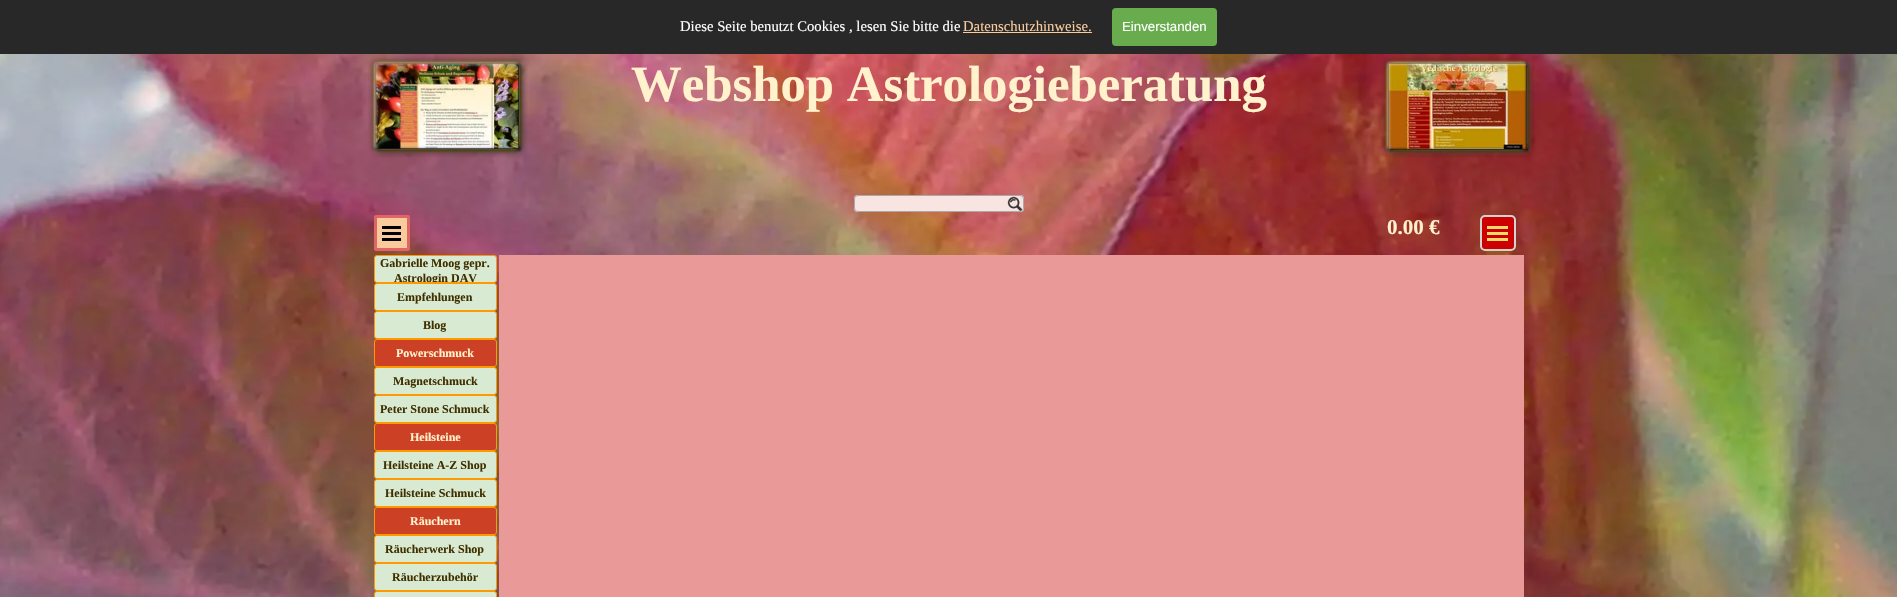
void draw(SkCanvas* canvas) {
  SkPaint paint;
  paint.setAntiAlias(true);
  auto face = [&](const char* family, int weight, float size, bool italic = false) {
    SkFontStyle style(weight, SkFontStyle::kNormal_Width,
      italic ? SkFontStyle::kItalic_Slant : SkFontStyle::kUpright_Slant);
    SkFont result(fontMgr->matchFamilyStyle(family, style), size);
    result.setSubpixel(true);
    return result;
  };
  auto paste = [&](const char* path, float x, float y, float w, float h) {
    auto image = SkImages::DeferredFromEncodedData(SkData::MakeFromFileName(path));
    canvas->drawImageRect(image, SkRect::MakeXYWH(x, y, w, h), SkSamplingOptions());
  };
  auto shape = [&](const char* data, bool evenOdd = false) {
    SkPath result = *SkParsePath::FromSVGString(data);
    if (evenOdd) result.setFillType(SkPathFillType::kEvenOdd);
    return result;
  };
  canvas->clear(0xffffffff);
  paint.setColor(0xff282828);
  canvas->drawRect(SkRect::MakeXYWH(0, 0, 1897, 54), paint);
  paint.setColor(0xfff9cb9c);
  canvas->drawRect(SkRect::MakeXYWH(963, 32, 129, 1), paint);
  paint.setColor(0xff69ac4d);
  canvas->drawRoundRect(SkRect::MakeXYWH(1112, 8, 105, 38), 4, 4, paint);
  paste("img/1.png", 0, 54, 1897, 543);
  paste("img/2.png", 368, 56, 160, 102);
  paste("img/3.png", 1381, 56, 154, 102);
  paint.setColor(0xfff8e4e0);
  canvas->drawRoundRect(SkRect::MakeXYWH(854, 195, 170, 17), 4, 4, paint);
  paste("img/4.png", 1007, 196, 16, 16);
  paint.setStroke(true);
  paint.setStrokeWidth(1);
  paint.setColor(0xffa9a9a9);
  canvas->drawRoundRect(SkRect::MakeXYWH(854.5f, 195.5f, 169, 16), 3.5f, 3.5f, paint);
  paint.setStroke(false);
  paint.setColor(0xfff9cb9c);
  canvas->drawRoundRect(SkRect::MakeXYWH(375.5f, 216.5f, 33, 33), 0.5f, 0.5f, paint);
  paint.setStroke(true);
  paint.setStrokeWidth(3);
  paint.setColor(0xffe06666);
  canvas->drawRoundRect(SkRect::MakeXYWH(375.5f, 216.5f, 33, 33), 0.5f, 0.5f, paint);
  paint.setStroke(false);
  {
    const struct { float x, y, w, h; SkColor color; } items[] = {
      {382, 226, 19, 3, 0xff000000},
      {382, 232, 19, 3, 0xff000000},
      {382, 238, 19, 3, 0xff000000},
    };
    for (auto [x, y, w, h, color] : items) {
      paint.setColor(color);
      canvas->drawRect(SkRect::MakeXYWH(x, y, w, h), paint);
    }
  }
  paint.setColor(0xffcc0000);
  canvas->drawRoundRect(SkRect::MakeXYWH(1481, 216, 34, 34), 4, 4, paint);
  paint.setStroke(true);
  paint.setStrokeWidth(2);
  paint.setColor(0xffd3d3d3);
  canvas->drawRoundRect(SkRect::MakeXYWH(1481, 216, 34, 34), 4, 4, paint);
  paint.setStroke(false);
  {
    const struct { float x, y, w, h; SkColor color; } items[] = {
      {1487, 226, 21, 3, 0xffffd966},
      {1487, 232, 21, 3, 0xffffd966},
      {1487, 238, 21, 3, 0xffffd966},
    };
    for (auto [x, y, w, h, color] : items) {
      paint.setColor(color);
      canvas->drawRect(SkRect::MakeXYWH(x, y, w, h), paint);
    }
  }
  paint.setColor(0xffd9ead3);
  canvas->drawRoundRect(SkRect::MakeXYWH(374.5f, 255.5f, 122, 27), 2.5f, 2.5f, paint);
  paint.setStroke(true);
  paint.setStrokeWidth(1);
  paint.setColor(0xffff9900);
  canvas->drawRoundRect(SkRect::MakeXYWH(374.5f, 255.5f, 122, 27), 2.5f, 2.5f, paint);
  paint.setStroke(false);
  paint.setColor(0xffd9ead3);
  canvas->drawRoundRect(SkRect::MakeXYWH(374.5f, 283.5f, 122, 27), 2.5f, 2.5f, paint);
  paint.setStroke(true);
  paint.setColor(0xffff9900);
  canvas->drawRoundRect(SkRect::MakeXYWH(374.5f, 283.5f, 122, 27), 2.5f, 2.5f, paint);
  paint.setStroke(false);
  paint.setColor(0xffd9ead3);
  canvas->drawRoundRect(SkRect::MakeXYWH(374.5f, 311.5f, 122, 27), 2.5f, 2.5f, paint);
  paint.setStroke(true);
  paint.setColor(0xffff9900);
  canvas->drawRoundRect(SkRect::MakeXYWH(374.5f, 311.5f, 122, 27), 2.5f, 2.5f, paint);
  paint.setStroke(false);
  paint.setColor(0xffcc4125);
  canvas->drawRoundRect(SkRect::MakeXYWH(374.5f, 339.5f, 122, 27), 2.5f, 2.5f, paint);
  paint.setStroke(true);
  paint.setColor(0xffff9900);
  canvas->drawRoundRect(SkRect::MakeXYWH(374.5f, 339.5f, 122, 27), 2.5f, 2.5f, paint);
  paint.setStroke(false);
  paint.setColor(0xffd9ead3);
  canvas->drawRoundRect(SkRect::MakeXYWH(374.5f, 367.5f, 122, 27), 2.5f, 2.5f, paint);
  paint.setStroke(true);
  paint.setColor(0xffff9900);
  canvas->drawRoundRect(SkRect::MakeXYWH(374.5f, 367.5f, 122, 27), 2.5f, 2.5f, paint);
  paint.setStroke(false);
  paint.setColor(0xffd9ead3);
  canvas->drawRoundRect(SkRect::MakeXYWH(374.5f, 395.5f, 122, 27), 2.5f, 2.5f, paint);
  paint.setStroke(true);
  paint.setColor(0xffff9900);
  canvas->drawRoundRect(SkRect::MakeXYWH(374.5f, 395.5f, 122, 27), 2.5f, 2.5f, paint);
  paint.setStroke(false);
  paint.setColor(0xffcc4125);
  canvas->drawRoundRect(SkRect::MakeXYWH(374.5f, 423.5f, 122, 27), 2.5f, 2.5f, paint);
  paint.setStroke(true);
  paint.setColor(0xffff9900);
  canvas->drawRoundRect(SkRect::MakeXYWH(374.5f, 423.5f, 122, 27), 2.5f, 2.5f, paint);
  paint.setStroke(false);
  paint.setColor(0xffd9ead3);
  canvas->drawRoundRect(SkRect::MakeXYWH(374.5f, 451.5f, 122, 27), 2.5f, 2.5f, paint);
  paint.setStroke(true);
  paint.setColor(0xffff9900);
  canvas->drawRoundRect(SkRect::MakeXYWH(374.5f, 451.5f, 122, 27), 2.5f, 2.5f, paint);
  paint.setStroke(false);
  paint.setColor(0xffd9ead3);
  canvas->drawRoundRect(SkRect::MakeXYWH(374.5f, 479.5f, 122, 27), 2.5f, 2.5f, paint);
  paint.setStroke(true);
  paint.setColor(0xffff9900);
  canvas->drawRoundRect(SkRect::MakeXYWH(374.5f, 479.5f, 122, 27), 2.5f, 2.5f, paint);
  paint.setStroke(false);
  paint.setColor(0xffcc4125);
  canvas->drawRoundRect(SkRect::MakeXYWH(374.5f, 507.5f, 122, 27), 2.5f, 2.5f, paint);
  paint.setStroke(true);
  paint.setColor(0xffff9900);
  canvas->drawRoundRect(SkRect::MakeXYWH(374.5f, 507.5f, 122, 27), 2.5f, 2.5f, paint);
  paint.setStroke(false);
  paint.setColor(0xffd9ead3);
  canvas->drawRoundRect(SkRect::MakeXYWH(374.5f, 535.5f, 122, 27), 2.5f, 2.5f, paint);
  paint.setStroke(true);
  paint.setColor(0xffff9900);
  canvas->drawRoundRect(SkRect::MakeXYWH(374.5f, 535.5f, 122, 27), 2.5f, 2.5f, paint);
  paint.setStroke(false);
  paint.setColor(0xffd9ead3);
  canvas->drawRoundRect(SkRect::MakeXYWH(374.5f, 563.5f, 122, 27), 2.5f, 2.5f, paint);
  paint.setStroke(true);
  paint.setColor(0xffff9900);
  canvas->drawRoundRect(SkRect::MakeXYWH(374.5f, 563.5f, 122, 27), 2.5f, 2.5f, paint);
  paint.setStroke(false);
  paint.setColor(0xffd9ead3);
  canvas->drawRoundRect(SkRect::MakeXYWH(374.5f, 591.5f, 122, 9), 2.5f, 2.5f, paint);
  paint.setStroke(true);
  paint.setColor(0xffff9900);
  canvas->drawRoundRect(SkRect::MakeXYWH(374.5f, 591.5f, 122, 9), 2.5f, 2.5f, paint);
  paint.setStroke(false);
  paint.setColor(0xffea9999);
  canvas->drawRect(SkRect::MakeXYWH(499, 255, 1025, 342), paint);
  auto f0 = face("Liberation Serif", 400, 14.7f);
  paint.setColor(0xffffffff);
  canvas->drawString("Diese Seite benutzt Cookies , lesen Sie bitte die", 680, 31, f0, paint);
  paint.setColor(0xfff9cb9c);
  canvas->drawString("Datenschutzhinweise.", 963, 31, f0, paint);
  auto f1 = face("Liberation Sans", 400, 13.25f);
  paint.setColor(0xffffffff);
  canvas->drawString("Einverstanden", 1122, 31, f1, paint);
  auto f2 = face("Liberation Serif", 700, 50.75f);
  paint.setColor(0xfffff2cc);
  canvas->drawString("Webshop Astrologieberatung", 631, 101, f2, paint);
  auto f3 = face("Liberation Serif", 700, 21);
  canvas->drawString("0.00 €", 1387, 234, f3, paint);
  auto f4 = face("Liberation Serif", 700, 12);
  paint.setColor(0xff403000);
  canvas->drawString("Gabrielle Moog gepr.", 380, 267, f4, paint);
  canvas->save();
  canvas->clipPath(shape("M377 256H494C495 256 496 257 496 258V280C496 281 495 282 494 282H377C376 282 375 281 375 280V258C375 257 376 256 377 256Z"), true);
  canvas->drawString("Astrologin DAV", 394, 282, f4, paint);
  canvas->restore();
  canvas->drawString("Empfehlungen", 397, 301, f4, paint);
  canvas->drawString("Blog", 423, 329, f4, paint);
  paint.setColor(0xfffff2cc);
  canvas->drawString("Powerschmuck", 396, 357, f4, paint);
  paint.setColor(0xff403000);
  canvas->drawString("Magnetschmuck", 393, 385, f4, paint);
  canvas->drawString("Peter Stone Schmuck", 380, 413, f4, paint);
  paint.setColor(0xfffff2cc);
  canvas->drawString("Heilsteine", 410, 441, f4, paint);
  paint.setColor(0xff403000);
  canvas->drawString("Heilsteine A-Z Shop", 383, 469, f4, paint);
  canvas->drawString("Heilsteine Schmuck", 385, 497, f4, paint);
  paint.setColor(0xfffff2cc);
  canvas->drawString("Räuchern", 410, 525, f4, paint);
  paint.setColor(0xff403000);
  canvas->drawString("Räucherwerk Shop", 385, 553, f4, paint);
  canvas->drawString("Räucherzubehör", 392, 581, f4, paint);
}
